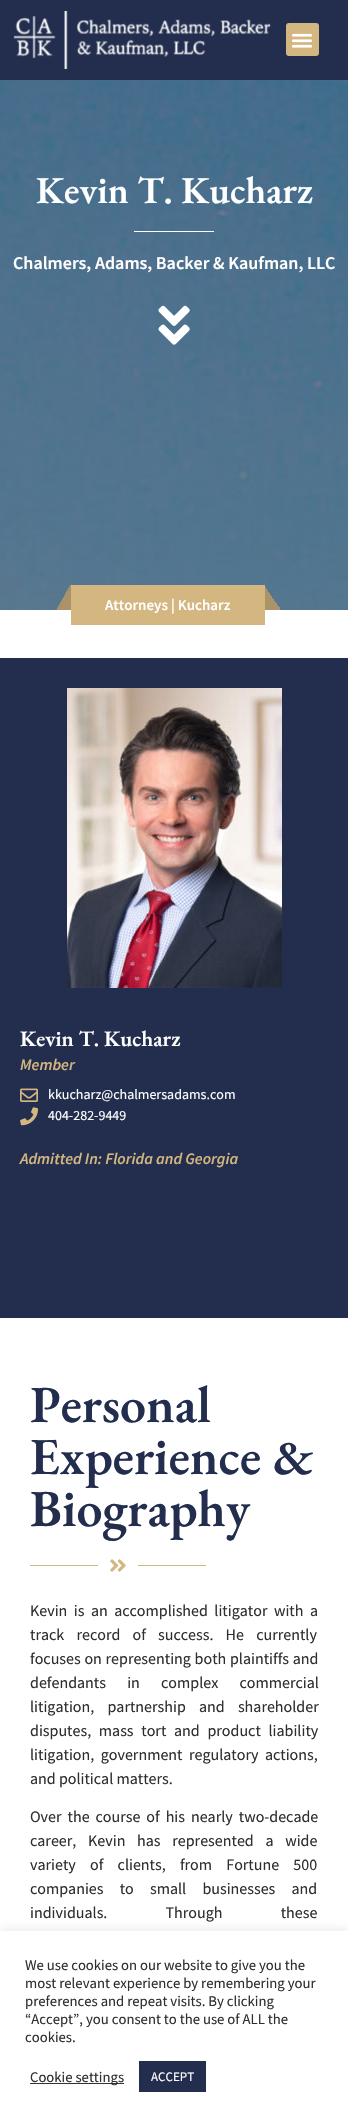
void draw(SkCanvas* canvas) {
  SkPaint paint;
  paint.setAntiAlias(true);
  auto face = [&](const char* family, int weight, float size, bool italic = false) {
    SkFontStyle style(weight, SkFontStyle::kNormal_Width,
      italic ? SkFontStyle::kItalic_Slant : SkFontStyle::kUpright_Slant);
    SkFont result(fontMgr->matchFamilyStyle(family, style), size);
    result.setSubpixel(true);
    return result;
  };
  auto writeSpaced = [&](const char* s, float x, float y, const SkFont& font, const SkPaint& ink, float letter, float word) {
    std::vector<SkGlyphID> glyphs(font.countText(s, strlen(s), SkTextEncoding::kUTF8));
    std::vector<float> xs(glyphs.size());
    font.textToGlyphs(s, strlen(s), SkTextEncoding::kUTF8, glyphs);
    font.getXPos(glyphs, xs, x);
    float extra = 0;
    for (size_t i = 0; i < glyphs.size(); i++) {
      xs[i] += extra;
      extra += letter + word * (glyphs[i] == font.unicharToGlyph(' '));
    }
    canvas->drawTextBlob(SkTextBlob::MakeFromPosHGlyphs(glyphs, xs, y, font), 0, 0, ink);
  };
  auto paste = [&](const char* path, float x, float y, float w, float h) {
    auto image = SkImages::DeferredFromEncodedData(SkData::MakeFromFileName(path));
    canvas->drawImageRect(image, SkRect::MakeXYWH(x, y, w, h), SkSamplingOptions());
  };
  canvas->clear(0xffffffff);
  paste("img/1.png", 0, 80, 348, 530);
  paint.setColor(0xff232e4e);
  canvas->drawRect(SkRect::MakeXYWH(0, 0, 348, 80), paint);
  paste("img/2.png", 13, 11, 258, 58);
  paint.setColor(0xffd3b680);
  canvas->drawRoundRect(SkRect::MakeXYWH(286, 23, 33, 33), 3, 3, paint);
  paste("img/3.png", 292, 33, 20, 15);
  paint.setColor(0x80232e4e);
  canvas->drawRect(SkRect::MakeXYWH(0, 80, 348, 530), paint);
  paint.setColor(0xffffffff);
  canvas->drawRect(SkRect::MakeXYWH(134, 231, 80, 1), paint);
  paste("img/4.png", 158, 305, 32, 40);
  paste("img/5.png", 57, 573, 223, 52);
  paint.setColor(0xff232e4e);
  canvas->drawRect(SkRect::MakeXYWH(0, 658, 348, 660), paint);
  paste("img/6.png", 67, 688, 215, 300);
  paste("img/7.png", 20, 1088, 18, 14);
  paste("img/8.png", 20, 1107, 18, 19);
  paint.setColor(0xffd3b680);
  canvas->drawRect(SkRect::MakeXYWH(30, 1565, 68, 1), paint);
  paste("img/9.png", 110, 1559, 16, 13);
  canvas->drawRect(SkRect::MakeXYWH(138, 1565, 68, 1), paint);
  paint.setColor(0x4dacabab);
  paint.setMaskFilter(SkMaskFilter::MakeBlur(kNormal_SkBlurStyle, 5));
  canvas->drawRect(SkRect::MakeXYWH(0, 1930, 348, 191), paint);
  paint.setMaskFilter(nullptr);
  {
    const struct { float x, y, w, h; SkColor color; } items[] = {
      {0, 1931, 348, 191, 0xffffffff},
      {30, 2083, 94, 1, 0xff333333},
      {139, 2061, 67, 31, 0xff232e4e},
    };
    for (auto [x, y, w, h, color] : items) {
      paint.setColor(color);
      canvas->drawRect(SkRect::MakeXYWH(x, y, w, h), paint);
    }
  }
  auto f0 = face("EB Garamond", 600, 38);
  paint.setColor(0xffffffff);
  canvas->drawString("Kevin T. Kucharz", 36, 203, f0, paint);
  auto f1 = face("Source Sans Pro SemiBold", 600, 18);
  canvas->drawString("Chalmers, Adams, Backer & Kaufman, LLC", 13, 269, f1, paint);
  auto f2 = face("Source Sans Pro SemiBold", 600, 15);
  canvas->drawString("Attorneys | Kucharz", 105, 610, f2, paint);
  auto f3 = face("EB Garamond", 600, 22);
  canvas->drawString("Kevin T. Kucharz", 20, 1046, f3, paint);
  auto f4 = face("Source Sans Pro SemiBold", 600, 16, true);
  paint.setColor(0xffd3b680);
  canvas->drawString("Member", 20, 1070, f4, paint);
  auto f5 = face("Source Sans Pro", 400, 14);
  paint.setColor(0xffffffff);
  canvas->drawString("kkucharz@chalmersadams.com", 48, 1099, f5, paint);
  canvas->drawString("404-282-9449", 48, 1120, f5, paint);
  paint.setColor(0xffd3b680);
  canvas->drawString("Admitted In: Florida and Georgia", 20, 1164, f4, paint);
  auto f6 = face("EB Garamond", 600, 52);
  paint.setColor(0xff232e4e);
  {
    const struct { const char* s; float x, y; } items[] = {
      {"Personal", 30, 1422},
      {"Experience &", 30, 1474},
      {"Biography", 30, 1526},
    };
    for (auto [s, x, y] : items) {
      canvas->drawString(s, x, y, f6, paint);
    }
  }
  auto f7 = face("Source Sans Pro", 400, 16);
  paint.setColor(0xff2f2f2f);
  writeSpaced("Kevin is an accomplished litigator with a", 30, 1616, f7, paint, 0, 3.25f);
  writeSpaced("track record of success. He currently", 30, 1640, f7, paint, 0, 9);
  writeSpaced("focuses on representing both plaintiffs and", 30, 1664, f7, paint, 0, 0.5f);
  writeSpaced("defendants in complex commercial", 30, 1688, f7, paint, 0, 18);
  writeSpaced("litigation, partnership and shareholder", 30, 1712, f7, paint, 0, 10);
  writeSpaced("disputes, mass tort and product liability", 30, 1736, f7, paint, 0, 4.5f);
  writeSpaced("litigation, government regulatory actions,", 30, 1760, f7, paint, 0, 3.25f);
  canvas->drawString("and political matters.", 30, 1784, f7, paint);
  writeSpaced("Over the course of his nearly two-decade", 30, 1822, f7, paint, 0, 2.75f);
  writeSpaced("career, Kevin has represented a wide", 30, 1846, f7, paint, 0, 8.5f);
  writeSpaced("variety of clients, from Fortune 500", 30, 1870, f7, paint, 0, 11);
  writeSpaced("companies to small businesses and", 30, 1894, f7, paint, 0, 13);
  writeSpaced("individuals. Through these", 30, 1918, f7, paint, 0, 55);
  auto f8 = face("Source Sans Pro", 400, 14.7f);
  {
    const struct { const char* s; float x, y; } items[] = {
      {"We use cookies on our website to give you the", 25, 1970},
      {"most relevant experience by remembering your", 25, 1988},
      {"preferences and repeat visits. By clicking", 25, 2006},
      {"“Accept”, you consent to the use of ALL the", 25, 2024},
      {"cookies.", 25, 2042},
      {"Cookie settings", 30, 2082},
    };
    for (auto [s, x, y] : items) {
      canvas->drawString(s, x, y, f8, paint);
    }
  }
  auto f9 = face("Source Sans Pro", 400, 13);
  paint.setColor(0xffffffff);
  canvas->drawString("ACCEPT", 151, 2081, f9, paint);
}
